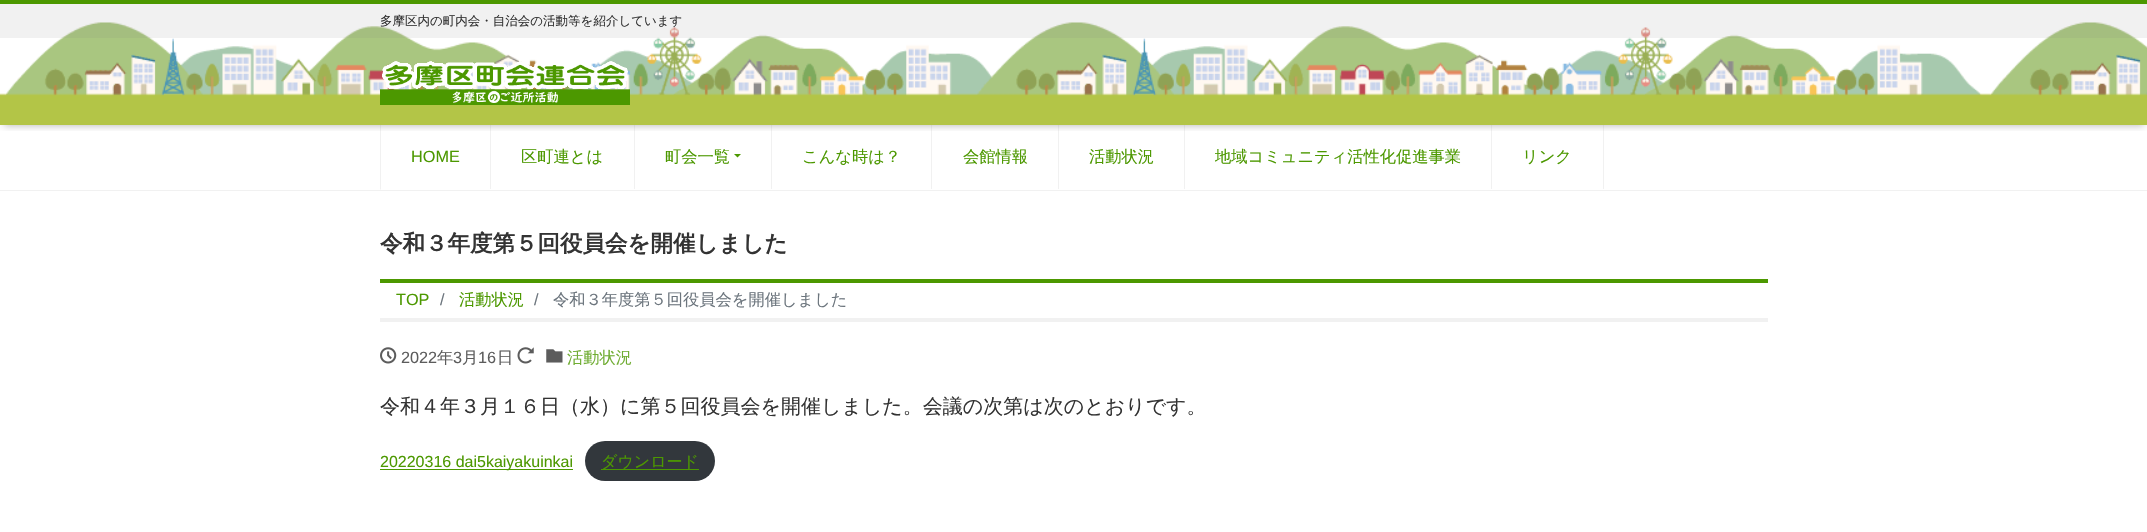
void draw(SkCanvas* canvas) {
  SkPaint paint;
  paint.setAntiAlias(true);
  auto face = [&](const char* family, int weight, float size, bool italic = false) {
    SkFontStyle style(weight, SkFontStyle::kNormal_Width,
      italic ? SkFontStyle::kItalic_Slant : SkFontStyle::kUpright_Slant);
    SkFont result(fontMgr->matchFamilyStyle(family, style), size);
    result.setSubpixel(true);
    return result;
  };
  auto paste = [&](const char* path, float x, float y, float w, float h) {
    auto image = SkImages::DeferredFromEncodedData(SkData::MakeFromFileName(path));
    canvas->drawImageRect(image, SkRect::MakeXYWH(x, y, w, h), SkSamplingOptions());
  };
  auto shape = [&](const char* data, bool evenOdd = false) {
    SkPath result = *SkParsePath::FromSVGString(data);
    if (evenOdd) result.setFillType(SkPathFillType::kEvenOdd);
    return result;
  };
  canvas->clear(0xffffffff);
  canvas->save();
  canvas->clipRect(SkRect::MakeXYWH(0, 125, 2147, 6));
  paint.setColor(0x4d000000);
  paint.setMaskFilter(SkMaskFilter::MakeBlur(kNormal_SkBlurStyle, 4));
  canvas->drawRect(SkRect::MakeXYWH(4, 8, 2140, 117), paint);
  paint.setMaskFilter(nullptr);
  canvas->restore();
  paste("img/1.png", 0, 22, 2147, 103);
  paint.setColor(0xff4c9800);
  canvas->drawRect(SkRect::MakeXYWH(0, 0, 2147, 4), paint);
  paint.setColor(0x1a777777);
  canvas->drawRect(SkRect::MakeXYWH(0, 4, 2147, 34), paint);
  paste("img/2.png", 380, 61, 250, 44);
  paint.setColor(0xfff1f1f1);
  canvas->drawRect(SkRect::MakeXYWH(0, 190, 2147, 1), paint);
  paint.setColor(0x1a777777);
  canvas->drawPath(shape("M380 190V125H381V189Z"), paint);
  {
    const struct { float x, y, w, h; SkColor color; } items[] = {
      {490, 125, 1, 64, 0x1a777777},
      {634, 125, 1, 64, 0x1a777777},
      {771, 125, 1, 64, 0x1a777777},
    };
    for (auto [x, y, w, h, color] : items) {
      paint.setColor(color);
      canvas->drawRect(SkRect::MakeXYWH(x, y, w, h), paint);
    }
  }
  paint.setColor(0xff4c9800);
  canvas->drawPath(shape("M734 154H741L737.5 157.5Z"), paint);
  {
    const struct { float x, y, w, h; SkColor color; } items[] = {
      {931, 125, 1, 64, 0x1a777777},
      {1058, 125, 1, 64, 0x1a777777},
      {1184, 125, 1, 64, 0x1a777777},
      {1491, 125, 1, 64, 0x1a777777},
      {1603, 125, 1, 64, 0x1a777777},
      {380, 279, 1388, 4, 0xff4c9800},
      {380, 318, 1388, 4, 0xfff1f1f1},
    };
    for (auto [x, y, w, h, color] : items) {
      paint.setColor(color);
      canvas->drawRect(SkRect::MakeXYWH(x, y, w, h), paint);
    }
  }
  paste("img/3.png", 380, 347, 17, 17);
  paste("img/4.png", 517, 347, 17, 17);
  paste("img/5.png", 546, 349, 17, 14);
  paint.setColor(0xff4c9800);
  canvas->drawRect(SkRect::MakeXYWH(380, 469, 193, 1), paint);
  paint.setColor(0xff32373c);
  canvas->drawRoundRect(SkRect::MakeXYWH(585, 441, 130, 40), 20, 20, paint);
  paint.setColor(0xff4c9800);
  canvas->drawRect(SkRect::MakeXYWH(601, 469, 98, 1), paint);
  auto f0 = face("WenQuanYi Zen Hei", 500, 12.5f);
  paint.setColor(0xff333333);
  canvas->drawString("多摩区内の町内会・自治会の活動等を紹介しています", 380, 25, f0, paint);
  auto f1 = face("Liberation Sans", 400, 16.25f);
  paint.setColor(0xff4c9800);
  canvas->drawString("HOME", 411, 162, f1, paint);
  auto f2 = face("WenQuanYi Zen Hei", 500, 16.25f);
  {
    const struct { const char* s; float x, y; } items[] = {
      {"区町連とは", 521, 162},
      {"町会一覧", 665, 162},
      {"こんな時は？", 802, 162},
      {"会館情報", 963, 162},
      {"活動状況", 1089, 162},
      {"地域コミュニティ活性化促進事業", 1215, 162},
      {"リンク", 1522, 162},
    };
    for (auto [s, x, y] : items) {
      canvas->drawString(s, x, y, f2, paint);
    }
  }
  auto f3 = face("WenQuanYi Zen Hei", 700, 22.5f);
  paint.setColor(0xff333333);
  canvas->drawString("令和３年度第５回役員会を開催しました", 380, 251, f3, paint);
  paint.setColor(0xff4c9800);
  canvas->drawString("TOP", 396, 305, f1, paint);
  paint.setColor(0xff6c757d);
  canvas->drawString("/", 440, 305, f1, paint);
  paint.setColor(0xff4c9800);
  canvas->drawString("活動状況", 459, 305, f2, paint);
  paint.setColor(0xff6c757d);
  canvas->drawString("/", 534, 305, f1, paint);
  canvas->drawString("令和３年度第５回役員会を開催しました", 553, 305, f2, paint);
  paint.setColor(0xff5c5c5c);
  canvas->drawString("2022", 401, 363, f1, paint);
  canvas->drawString("年", 437, 363, f2, paint);
  canvas->drawString("3", 453, 363, f1, paint);
  canvas->drawString("月", 462, 363, f2, paint);
  canvas->drawString("16", 478, 363, f1, paint);
  canvas->drawString("日", 497, 363, f2, paint);
  paint.setColor(0xff70ad33);
  canvas->drawString("活動状況", 567, 363, f2, paint);
  auto f4 = face("WenQuanYi Zen Hei", 500, 20);
  paint.setColor(0xff333333);
  canvas->drawString("令和４年３月１６日（水）に第５回役員会を開催しました。会議の次第は次のとおりです。", 380, 413, f4, paint);
  auto f5 = face("Liberation Sans", 400, 16);
  paint.setColor(0xff4c9800);
  canvas->drawString("20220316 dai5kaiyakuinkai", 380, 467, f5, paint);
  auto f6 = face("WenQuanYi Zen Hei", 500, 16);
  canvas->drawString("ダウンロード", 601, 467, f6, paint);
}
